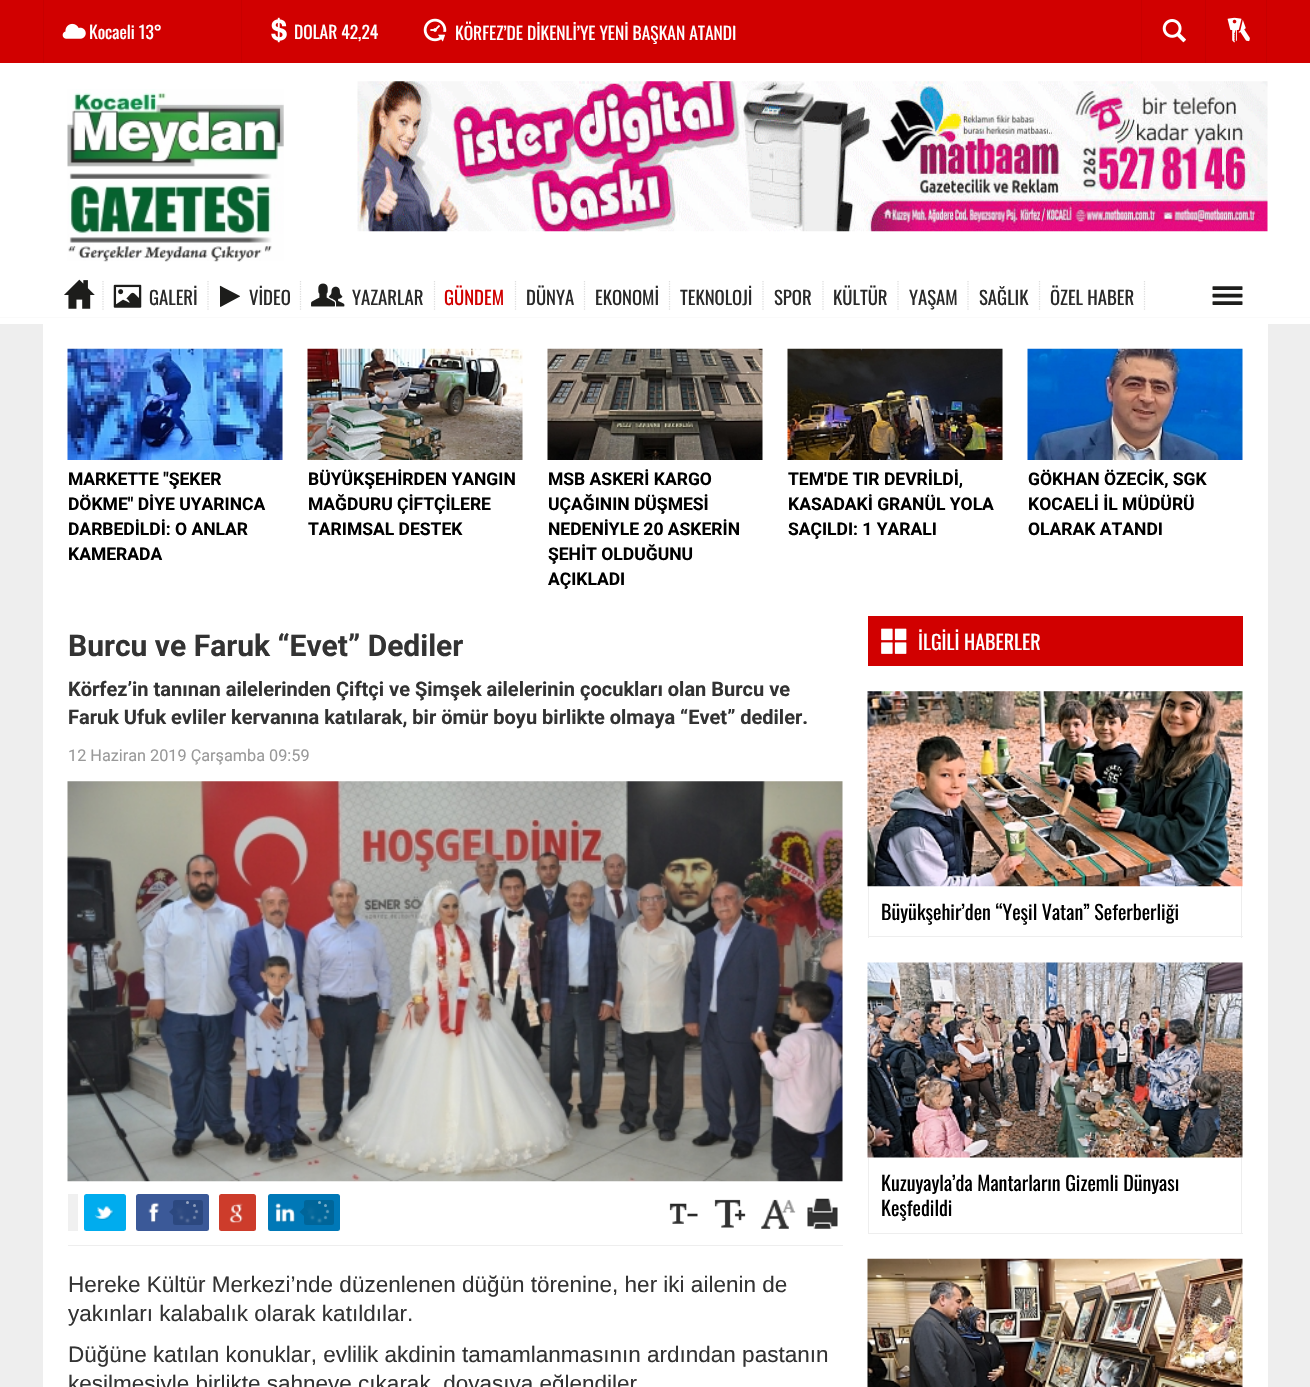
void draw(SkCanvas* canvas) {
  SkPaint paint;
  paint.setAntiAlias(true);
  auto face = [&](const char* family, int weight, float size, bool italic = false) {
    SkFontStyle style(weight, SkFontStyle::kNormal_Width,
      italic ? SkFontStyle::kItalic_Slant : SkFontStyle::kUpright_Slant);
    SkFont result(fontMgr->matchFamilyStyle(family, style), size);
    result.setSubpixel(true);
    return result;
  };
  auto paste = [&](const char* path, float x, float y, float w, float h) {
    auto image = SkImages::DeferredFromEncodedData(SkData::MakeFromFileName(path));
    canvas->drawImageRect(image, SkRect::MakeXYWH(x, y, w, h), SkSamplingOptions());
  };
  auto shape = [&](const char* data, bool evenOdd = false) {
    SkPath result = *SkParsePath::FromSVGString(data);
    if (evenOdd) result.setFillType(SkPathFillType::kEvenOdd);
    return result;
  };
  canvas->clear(0xffeeeeee);
  {
    const struct { float x, y, w, h; SkColor color; } items[] = {
      {0, 63, 1310, 261, 0xffffffff},
      {0, 0, 1310, 63, 0xffd10000},
      {43, 0, 1, 63, 0xffc70000},
    };
    for (auto [x, y, w, h, color] : items) {
      paint.setColor(color);
      canvas->drawRect(SkRect::MakeXYWH(x, y, w, h), paint);
    }
  }
  paste("img/1.png", 62, 23, 24, 16);
  canvas->drawRect(SkRect::MakeXYWH(241, 0, 1, 63), paint);
  paste("img/2.png", 271, 17, 16, 26);
  paste("img/3.png", 423, 18, 24, 24);
  canvas->drawRect(SkRect::MakeXYWH(1141, 0, 1, 63), paint);
  paste("img/4.png", 1162, 19, 24, 24);
  canvas->drawRect(SkRect::MakeXYWH(1266, 0, 1, 63), paint);
  canvas->drawRect(SkRect::MakeXYWH(1205, 0, 1, 63), paint);
  paste("img/5.png", 1227, 17, 23, 26);
  paste("img/6.png", 67, 89, 217, 173);
  paste("img/7.png", 357, 81, 911, 151);
  paint.setColor(0xfffafafa);
  canvas->drawRect(SkRect::MakeXYWH(0, 317, 1310, 1), paint);
  paint.setStroke(true);
  paint.setStrokeWidth(1.2f);
  paint.setColor(0xffdddddd);
  paint.setPathEffect(SkDashPathEffect::Make({{1.25f, 1.25f}}, 0));
  canvas->drawPath(shape("M103 281V311"), paint);
  paint.setPathEffect(nullptr);
  paste("img/8.png", 64, 279, 31, 30);
  paint.setPathEffect(SkDashPathEffect::Make({{1.25f, 1.25f}}, 0));
  canvas->drawPath(shape("M208 281V311"), paint);
  paint.setPathEffect(nullptr);
  paste("img/9.png", 113, 284, 29, 24);
  paint.setPathEffect(SkDashPathEffect::Make({{1.25f, 1.25f}}, 0));
  canvas->drawPath(shape("M300.5 281V311"), paint);
  paint.setPathEffect(nullptr);
  paint.setStroke(false);
  paint.setColor(0xff1d1d1b);
  canvas->drawPath(shape("M220 306.5V289.5C220 284.5 219 285 223.5 287.5L240 296V296.5L220.5 307Z"), paint);
  paint.setStroke(true);
  paint.setColor(0xffdddddd);
  paint.setPathEffect(SkDashPathEffect::Make({{1.25f, 1.25f}}, 0));
  canvas->drawPath(shape("M434.5 281V311"), paint);
  paint.setPathEffect(nullptr);
  paste("img/10.png", 311, 283, 34, 24);
  paint.setPathEffect(SkDashPathEffect::Make({{1.25f, 1.25f}}, 0));
  canvas->drawPath(shape("M515.5 281V311"), paint);
  paint.setPathEffect(nullptr);
  paint.setPathEffect(SkDashPathEffect::Make({{1.25f, 1.25f}}, 0));
  canvas->drawPath(shape("M584.5 281V311"), paint);
  paint.setPathEffect(nullptr);
  paint.setPathEffect(SkDashPathEffect::Make({{1.25f, 1.25f}}, 0));
  canvas->drawPath(shape("M669.5 281V311"), paint);
  paint.setPathEffect(nullptr);
  paint.setPathEffect(SkDashPathEffect::Make({{1.25f, 1.25f}}, 0));
  canvas->drawPath(shape("M763 281V311"), paint);
  paint.setPathEffect(nullptr);
  paint.setPathEffect(SkDashPathEffect::Make({{1.25f, 1.25f}}, 0));
  canvas->drawPath(shape("M823 281V311"), paint);
  paint.setPathEffect(nullptr);
  paint.setPathEffect(SkDashPathEffect::Make({{1.25f, 1.25f}}, 0));
  canvas->drawPath(shape("M898 281V311"), paint);
  paint.setPathEffect(nullptr);
  paint.setPathEffect(SkDashPathEffect::Make({{1.25f, 1.25f}}, 0));
  canvas->drawPath(shape("M968 281V311"), paint);
  paint.setPathEffect(nullptr);
  paint.setPathEffect(SkDashPathEffect::Make({{1.25f, 1.25f}}, 0));
  canvas->drawPath(shape("M1039.5 281V311"), paint);
  paint.setPathEffect(nullptr);
  paint.setPathEffect(SkDashPathEffect::Make({{1.25f, 1.25f}}, 0));
  canvas->drawPath(shape("M1144.5 281V311"), paint);
  paint.setPathEffect(nullptr);
  paste("img/11.png", 1212, 286, 31, 19);
  paint.setStroke(false);
  paint.setColor(0xffffffff);
  canvas->drawRect(SkRect::MakeXYWH(43, 324, 1225, 1063), paint);
  paste("img/12.png", 67, 348, 216, 112);
  paste("img/13.png", 307, 348, 216, 112);
  paste("img/14.png", 547, 348, 216, 112);
  paste("img/15.png", 787, 348, 216, 112);
  paste("img/16.png", 1027, 348, 216, 112);
  paste("img/17.png", 67, 781, 776, 401);
  paint.setColor(0xffeeeeee);
  canvas->drawRect(SkRect::MakeXYWH(68, 1245, 775, 1), paint);
  paint.setColor(0xfff0f0f0);
  canvas->drawRect(SkRect::MakeXYWH(68, 1194, 10, 37), paint);
  paint.setColor(0xff00acee);
  canvas->drawRoundRect(SkRect::MakeXYWH(84, 1194, 42, 37), 2.5f, 2.5f, paint);
  paste("img/18.png", 94, 1206, 20, 14);
  paint.setColor(0xff3b5998);
  canvas->drawRoundRect(SkRect::MakeXYWH(136, 1194, 73, 37), 2.5f, 2.5f, paint);
  paste("img/19.png", 148, 1202, 12, 21);
  paint.setColor(0xff2c487f);
  canvas->drawRoundRect(SkRect::MakeXYWH(173, 1200, 30, 25), 2.5f, 2.5f, paint);
  paint.setColor(0x6696a4bf);
  paint.setMaskFilter(SkMaskFilter::MakeBlur(kNormal_SkBlurStyle, 2));
  canvas->drawRoundRect(SkRect::MakeXYWH(178, 1210, 3, 3), 1.5f, 1.5f, paint);
  paint.setMaskFilter(nullptr);
  paint.setColor(0x8096a4bf);
  paint.setMaskFilter(SkMaskFilter::MakeBlur(kNormal_SkBlurStyle, 1));
  canvas->drawRoundRect(SkRect::MakeXYWH(180, 1216, 3, 3), 1.5f, 1.5f, paint);
  paint.setMaskFilter(nullptr);
  paint.setColor(0x9996a4bf);
  paint.setMaskFilter(SkMaskFilter::MakeBlur(kNormal_SkBlurStyle, 1));
  canvas->drawRoundRect(SkRect::MakeXYWH(186, 1219, 3, 3), 1.5f, 1.5f, paint);
  paint.setMaskFilter(nullptr);
  paint.setColor(0xb396a4bf);
  paint.setMaskFilter(SkMaskFilter::MakeBlur(kNormal_SkBlurStyle, 0.5f));
  canvas->drawRoundRect(SkRect::MakeXYWH(193, 1216, 3, 3), 1.5f, 1.5f, paint);
  paint.setMaskFilter(nullptr);
  paint.setColor(0xcc96a4bf);
  paint.setMaskFilter(SkMaskFilter::MakeBlur(kNormal_SkBlurStyle, 0.5f));
  canvas->drawRoundRect(SkRect::MakeXYWH(195, 1210, 3, 3), 1.5f, 1.5f, paint);
  paint.setMaskFilter(nullptr);
  paint.setColor(0xff8b9bb9);
  canvas->drawCircle(194.5f, 1205.5f, 1.5f, paint);
  paint.setColor(0xff96a4bf);
  canvas->drawCircle(187.5f, 1202.5f, 1.5f, paint);
  paint.setColor(0xff2c487f);
  canvas->drawPath(shape("M173.5 1207.5L178 1212L173.5 1216L169 1212Z"), paint);
  paint.setColor(0xffcd3c2b);
  canvas->drawRoundRect(SkRect::MakeXYWH(219, 1194, 37, 37), 2.5f, 2.5f, paint);
  paste("img/20.png", 229, 1203, 14, 20);
  paint.setColor(0xff0078b7);
  canvas->drawRoundRect(SkRect::MakeXYWH(268, 1194, 72, 37), 2.5f, 2.5f, paint);
  paste("img/21.png", 275, 1203, 20, 19);
  paint.setColor(0xff006599);
  canvas->drawRoundRect(SkRect::MakeXYWH(304, 1200, 30, 25), 2.5f, 2.5f, paint);
  paint.setColor(0x6680b2cc);
  paint.setMaskFilter(SkMaskFilter::MakeBlur(kNormal_SkBlurStyle, 2));
  canvas->drawRoundRect(SkRect::MakeXYWH(309, 1210, 3, 3), 1.5f, 1.5f, paint);
  paint.setMaskFilter(nullptr);
  paint.setColor(0x8080b2cc);
  paint.setMaskFilter(SkMaskFilter::MakeBlur(kNormal_SkBlurStyle, 1));
  canvas->drawRoundRect(SkRect::MakeXYWH(311, 1216, 3, 3), 1.5f, 1.5f, paint);
  paint.setMaskFilter(nullptr);
  paint.setColor(0x9980b2cc);
  paint.setMaskFilter(SkMaskFilter::MakeBlur(kNormal_SkBlurStyle, 1));
  canvas->drawRoundRect(SkRect::MakeXYWH(318, 1219, 3, 3), 1.5f, 1.5f, paint);
  paint.setMaskFilter(nullptr);
  paint.setColor(0xb380b2cc);
  paint.setMaskFilter(SkMaskFilter::MakeBlur(kNormal_SkBlurStyle, 0.5f));
  canvas->drawRoundRect(SkRect::MakeXYWH(324, 1216, 3, 3), 1.5f, 1.5f, paint);
  paint.setMaskFilter(nullptr);
  paint.setColor(0xcc80b2cc);
  paint.setMaskFilter(SkMaskFilter::MakeBlur(kNormal_SkBlurStyle, 0.5f));
  canvas->drawRoundRect(SkRect::MakeXYWH(326, 1210, 3, 3), 1.5f, 1.5f, paint);
  paint.setMaskFilter(nullptr);
  paint.setColor(0xff73aac7);
  canvas->drawCircle(325.5f, 1205.5f, 1.5f, paint);
  paint.setColor(0xff80b2cc);
  canvas->drawCircle(319.5f, 1202.5f, 1.5f, paint);
  paint.setColor(0xff006599);
  canvas->drawPath(shape("M304 1207.5L308.5 1212L304 1216L299.5 1212Z"), paint);
  paste("img/22.png", 669, 1203, 29, 21);
  paste("img/23.png", 714, 1199, 32, 29);
  paste("img/24.png", 761, 1199, 35, 30);
  paste("img/25.png", 807, 1198, 31, 31);
  paint.setColor(0xffd10000);
  canvas->drawRect(SkRect::MakeXYWH(868, 616, 375, 50), paint);
  paste("img/26.png", 881, 628, 26, 26);
  {
    const struct { float x, y, w, h; SkColor color; } items[] = {
      {1241, 886, 1, 52, 0xffeeeeee},
      {868, 936, 375, 1, 0xffeeeeee},
      {868, 886, 1, 52, 0xffeeeeee},
    };
    for (auto [x, y, w, h, color] : items) {
      paint.setColor(color);
      canvas->drawRect(SkRect::MakeXYWH(x, y, w, h), paint);
    }
  }
  paste("img/27.png", 867, 691, 376, 196);
  paste("img/28.png", 867, 962, 376, 196);
  {
    const struct { float x, y, w, h; SkColor color; } items[] = {
      {1241, 1158, 1, 76, 0xffeeeeee},
      {868, 1233, 375, 1, 0xffeeeeee},
      {868, 1158, 1, 76, 0xffeeeeee},
    };
    for (auto [x, y, w, h, color] : items) {
      paint.setColor(color);
      canvas->drawRect(SkRect::MakeXYWH(x, y, w, h), paint);
    }
  }
  paste("img/29.png", 867, 1258, 376, 129);
  auto f0 = face("Oswald", 400, 17.5f);
  paint.setColor(0xffffffff);
  {
    const struct { const char* s; float x, y; } items[] = {
      {"Kocaeli 13°", 89, 39},
      {"DOLAR 42,24", 294, 39},
      {"KÖRFEZ’DE DİKENLİ’YE YENİ BAŞKAN ATANDI", 455, 40},
    };
    for (auto [s, x, y] : items) {
      canvas->drawString(s, x, y, f0, paint);
    }
  }
  auto f1 = face("Oswald", 400, 18.75f);
  paint.setColor(0xff2a2a2a);
  {
    const struct { const char* s; float x, y; } items[] = {
      {"GALERİ", 149, 305},
      {"VİDEO", 249, 305},
      {"YAZARLAR", 352, 305},
    };
    for (auto [s, x, y] : items) {
      canvas->drawString(s, x, y, f1, paint);
    }
  }
  paint.setColor(0xffd10000);
  canvas->drawString("GÜNDEM", 444, 305, f1, paint);
  paint.setColor(0xff2a2a2a);
  {
    const struct { const char* s; float x, y; } items[] = {
      {"DÜNYA", 526, 305},
      {"EKONOMİ", 595, 305},
      {"TEKNOLOJİ", 680, 305},
      {"SPOR", 774, 305},
      {"KÜLTÜR", 833, 305},
      {"YAŞAM", 909, 305},
      {"SAĞLIK", 979, 305},
      {"ÖZEL HABER", 1050, 305},
    };
    for (auto [s, x, y] : items) {
      canvas->drawString(s, x, y, f1, paint);
    }
  }
  auto f2 = face("Roboto", 700, 17.5f);
  paint.setColor(0xff000000);
  {
    const struct { const char* s; float x, y; } items[] = {
      {"MARKETTE \"ŞEKER", 68, 485},
      {"DÖKME\" DİYE UYARINCA", 68, 510},
      {"DARBEDİLDİ: O ANLAR", 68, 535},
      {"KAMERADA", 68, 560},
      {"BÜYÜKŞEHİRDEN YANGIN", 308, 485},
      {"MAĞDURU ÇİFTÇİLERE", 308, 510},
      {"TARIMSAL DESTEK", 308, 535},
      {"MSB ASKERİ KARGO", 548, 485},
      {"UÇAĞININ DÜŞMESİ", 548, 510},
      {"NEDENİYLE 20 ASKERİN", 548, 535},
      {"ŞEHİT OLDUĞUNU", 548, 560},
      {"AÇIKLADI", 548, 585},
      {"TEM'DE TIR DEVRİLDİ,", 788, 485},
      {"KASADAKİ GRANÜL YOLA", 788, 510},
      {"SAÇILDI: 1 YARALI", 788, 535},
      {"GÖKHAN ÖZECİK, SGK", 1028, 485},
      {"KOCAELİ İL MÜDÜRÜ", 1028, 510},
      {"OLARAK ATANDI", 1028, 535},
    };
    for (auto [s, x, y] : items) {
      canvas->drawString(s, x, y, f2, paint);
    }
  }
  auto f3 = face("Roboto", 700, 30);
  paint.setColor(0xff333333);
  canvas->drawString("Burcu ve Faruk “Evet” Dediler", 68, 656, f3, paint);
  auto f4 = face("Roboto", 700, 20);
  canvas->drawString("Körfez’in tanınan ailelerinden Çiftçi ve Şimşek ailelerinin çocukları olan Burcu ve", 68, 696, f4, paint);
  canvas->drawString("Faruk Ufuk evliler kervanına katılarak, bir ömür boyu birlikte olmaya “Evet” dediler.", 68, 724, f4, paint);
  auto f5 = face("Roboto", 400, 16.25f);
  paint.setColor(0xff999999);
  canvas->drawString("12 Haziran 2019 Çarşamba 09:59", 68, 761, f5, paint);
  auto f6 = face("Liberation Sans", 400, 22.5f);
  paint.setColor(0xff333333);
  {
    const struct { const char* s; float x, y; } items[] = {
      {"Hereke Kültür Merkezi’nde düzenlenen düğün törenine, her iki ailenin de", 68, 1292},
      {"yakınları kalabalık olarak katıldılar.", 68, 1321},
      {"Düğüne katılan konuklar, evlilik akdinin tamamlanmasının ardından pastanın", 68, 1362},
      {"kesilmesiyle birlikte sahneye çıkarak, doyasıya eğlendiler", 68, 1391},
    };
    for (auto [s, x, y] : items) {
      canvas->drawString(s, x, y, f6, paint);
    }
  }
  auto f7 = face("Oswald", 400, 20);
  paint.setColor(0xffffffff);
  canvas->drawString("İLGİLİ HABERLER", 918, 650, f7, paint);
  paint.setColor(0xff000000);
  {
    const struct { const char* s; float x, y; } items[] = {
      {"Büyükşehir’den “Yeşil Vatan” Seferberliği", 881, 920},
      {"Kuzuyayla’da Mantarların Gizemli Dünyası", 881, 1191},
      {"Keşfedildi", 881, 1216},
    };
    for (auto [s, x, y] : items) {
      canvas->drawString(s, x, y, f7, paint);
    }
  }
}
